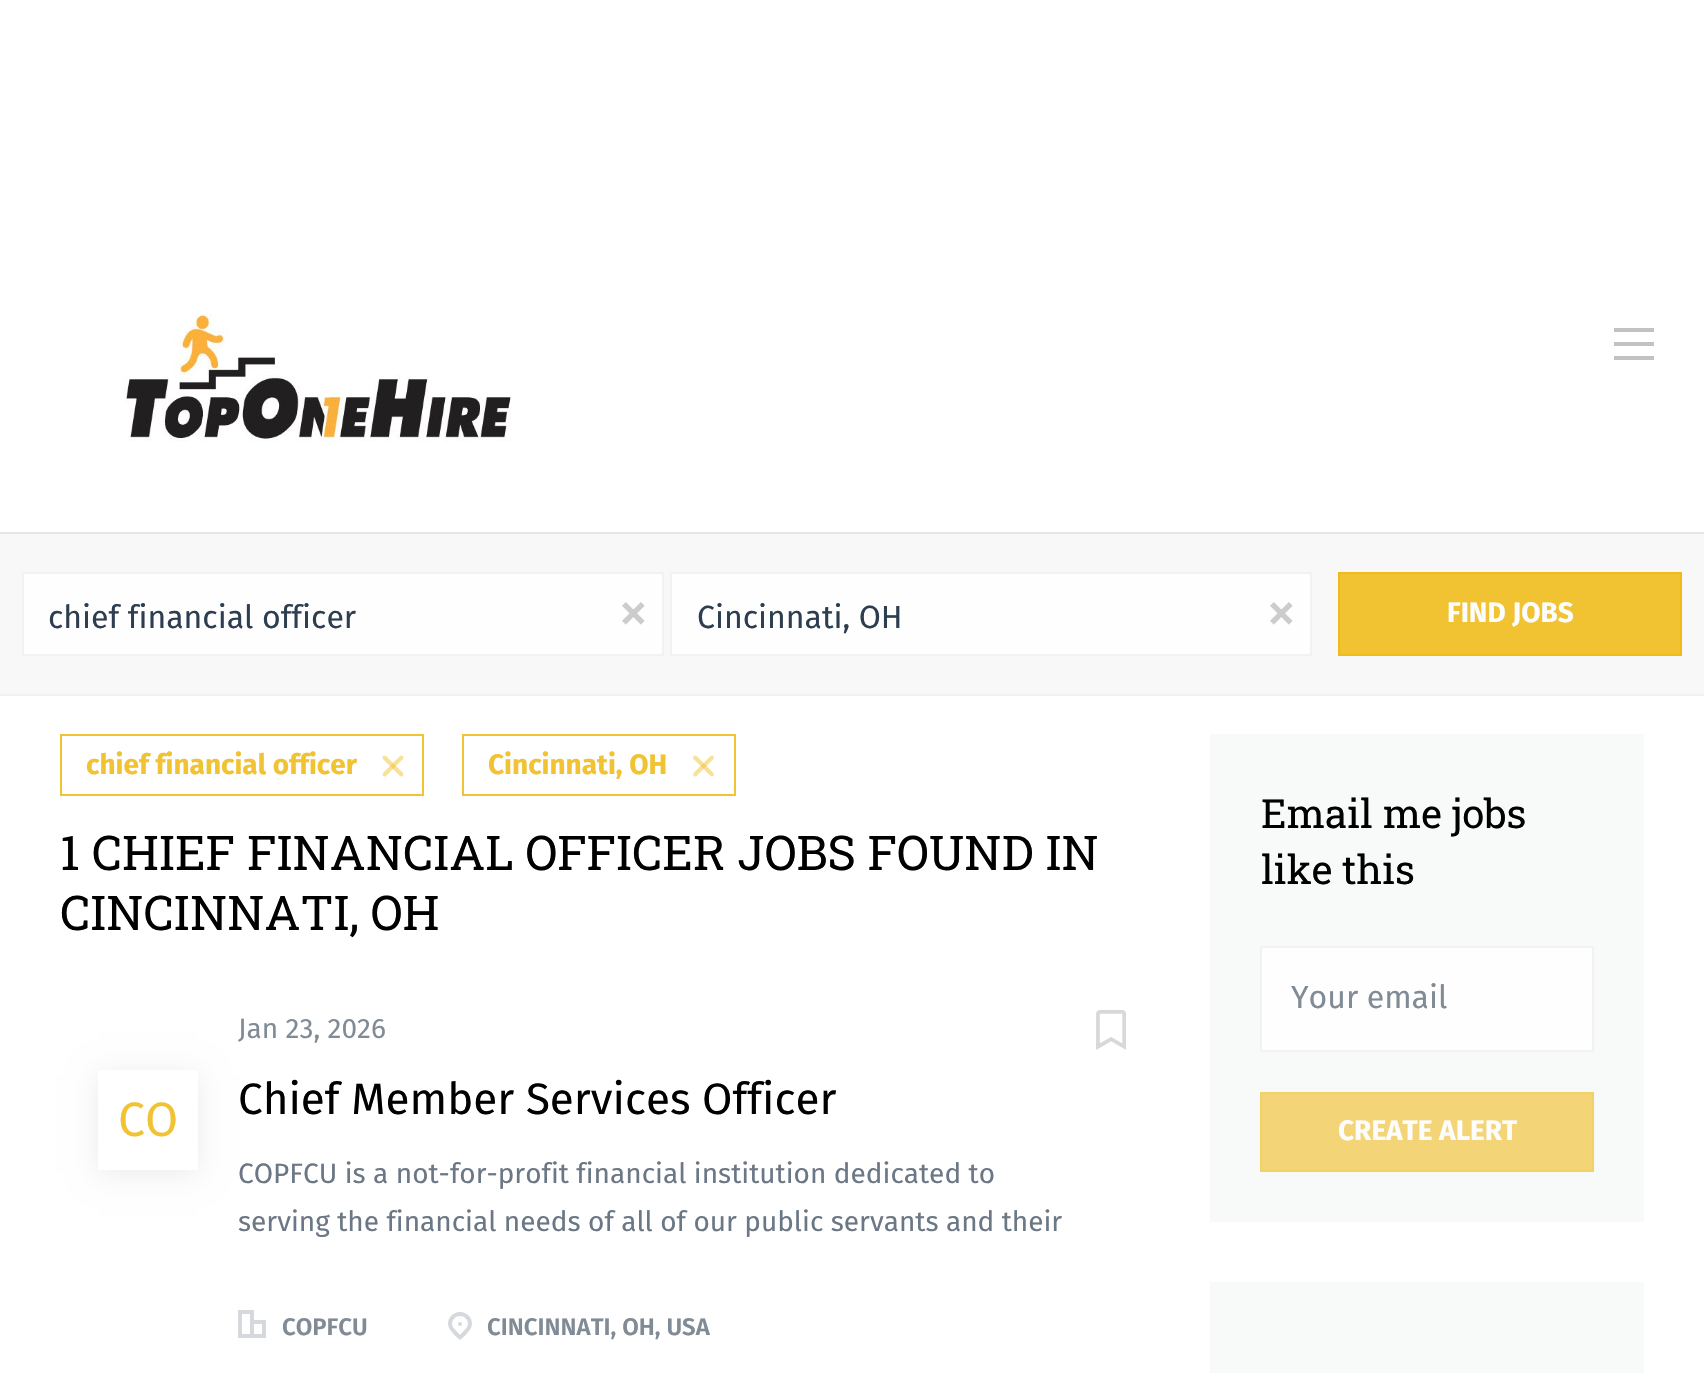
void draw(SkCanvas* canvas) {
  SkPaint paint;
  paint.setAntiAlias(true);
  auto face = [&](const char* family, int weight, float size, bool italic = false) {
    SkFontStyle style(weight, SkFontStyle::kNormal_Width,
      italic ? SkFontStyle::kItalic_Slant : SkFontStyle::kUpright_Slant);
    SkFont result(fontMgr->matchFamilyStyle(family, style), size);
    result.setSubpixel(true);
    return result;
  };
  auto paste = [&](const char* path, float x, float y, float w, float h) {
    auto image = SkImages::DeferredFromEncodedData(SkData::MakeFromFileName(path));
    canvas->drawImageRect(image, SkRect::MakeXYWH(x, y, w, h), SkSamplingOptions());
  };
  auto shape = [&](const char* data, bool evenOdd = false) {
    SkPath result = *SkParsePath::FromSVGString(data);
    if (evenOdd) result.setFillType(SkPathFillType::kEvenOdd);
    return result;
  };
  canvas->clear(0xffffffff);
  paint.setColor(0xffe4e6e8);
  canvas->drawRect(SkRect::MakeXYWH(0, 532, 1704, 2), paint);
  paste("img/1.png", 124, 314, 387, 132);
  {
    const struct { float x, y, w, h; SkColor color; } items[] = {
      {1614, 342, 40, 4, 0xffc2c2c2},
      {1614, 328, 40, 4, 0xffc2c2c2},
      {1614, 356, 40, 4, 0xffc2c2c2},
      {0, 694, 1704, 2, 0xfff0f1f1},
      {0, 534, 1704, 160, 0xfff8f8f9},
    };
    for (auto [x, y, w, h, color] : items) {
      paint.setColor(color);
      canvas->drawRect(SkRect::MakeXYWH(x, y, w, h), paint);
    }
  }
  paint.setColor(0xfffefefe);
  canvas->drawRect(SkRect::MakeXYWH(23, 573, 640, 82), paint);
  paint.setStroke(true);
  paint.setStrokeWidth(2);
  paint.setColor(0xfff2f2f2);
  canvas->drawRect(SkRect::MakeXYWH(23, 573, 640, 82), paint);
  paste("img/2.png", 622, 602, 23, 23);
  paint.setStroke(false);
  paint.setColor(0xfffefefe);
  canvas->drawRect(SkRect::MakeXYWH(671, 573, 640, 82), paint);
  paint.setStroke(true);
  paint.setColor(0xfff2f2f2);
  canvas->drawRect(SkRect::MakeXYWH(671, 573, 640, 82), paint);
  paste("img/2.png", 1270, 602, 23, 23);
  paint.setStroke(false);
  paint.setColor(0xfff1c232);
  canvas->drawRect(SkRect::MakeXYWH(1339, 573, 342, 82), paint);
  paint.setStroke(true);
  paint.setColor(0xffefbb1a);
  canvas->drawRect(SkRect::MakeXYWH(1339, 573, 342, 82), paint);
  paint.setColor(0xfff1c232);
  canvas->drawRect(SkRect::MakeXYWH(61, 735, 362, 60), paint);
  paint.setStroke(false);
  paint.setColor(0xfff8e199);
  canvas->drawPath(shape("M383 773L400 756C401 755.5 402 755.5 403 756C403.5 757 403.5 758 403 759L386 776C385 776.5 384 776.5 383 776C382.5 775 382.5 774 383 773Z"), paint);
  paint.setColor(0x80f1c232);
  canvas->drawPath(shape("M386 756L403 773C403.5 774 403.5 775 403 776C402 776.5 401 776.5 400 776L383 759C382.5 758 382.5 757 383 756C384 755.5 385 755.5 386 756Z"), paint);
  paint.setStroke(true);
  paint.setColor(0xfff1c232);
  canvas->drawRect(SkRect::MakeXYWH(463, 735, 272, 60), paint);
  paint.setStroke(false);
  paint.setColor(0xfff8e199);
  canvas->drawPath(shape("M693.5 773L710.5 756C711.5 755.5 712.5 755.5 713.5 756C714 757 714 758 713.5 759L696.5 776C695.5 776.5 694.5 776.5 693.5 776C693 775 693 774 693.5 773Z"), paint);
  paint.setColor(0x80f1c232);
  canvas->drawPath(shape("M696.5 756L713.5 773C714 774 714 775 713.5 776C712.5 776.5 711.5 776.5 710.5 776L693.5 759C693 758 693 757 693.5 756C694.5 755.5 695.5 755.5 696.5 756Z"), paint);
  canvas->save();
  canvas->clipPath(shape("M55 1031H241V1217H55ZM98 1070H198V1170H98Z", true), true);
  paint.setColor(0x14000000);
  paint.setMaskFilter(SkMaskFilter::MakeBlur(kNormal_SkBlurStyle, 14));
  canvas->drawRect(SkRect::MakeXYWH(98, 1074, 100, 100), paint);
  paint.setMaskFilter(nullptr);
  canvas->restore();
  paste("img/3.png", 1096, 1010, 30, 40);
  paste("img/4.png", 238, 1310, 28, 28);
  paste("img/5.png", 448, 1312, 24, 28);
  paint.setColor(0xfff8f9f9);
  canvas->drawRect(SkRect::MakeXYWH(1210, 734, 434, 488), paint);
  paint.setColor(0xfffefefe);
  canvas->drawRect(SkRect::MakeXYWH(1261, 947, 332, 104), paint);
  paint.setStroke(true);
  paint.setColor(0xfff2f2f2);
  canvas->drawRect(SkRect::MakeXYWH(1261, 947, 332, 104), paint);
  paint.setStroke(false);
  paint.setColor(0xfff3d578);
  canvas->drawRect(SkRect::MakeXYWH(1261, 1093, 332, 78), paint);
  paint.setStroke(true);
  paint.setColor(0xfff2d168);
  canvas->drawRect(SkRect::MakeXYWH(1261, 1093, 332, 78), paint);
  paint.setStroke(false);
  paint.setColor(0xfff8f9f9);
  canvas->drawRect(SkRect::MakeXYWH(1210, 1282, 434, 91), paint);
  auto f0 = face("Fira Sans", 400, 32);
  paint.setColor(0xff2d3e50);
  canvas->drawString("chief financial officer", 48, 628, f0, paint);
  canvas->drawString("Cincinnati, OH", 697, 628, f0, paint);
  auto f1 = face("Fira Sans", 700, 28);
  paint.setColor(0xfffdfdfd);
  canvas->drawString("FIND JOBS", 1447, 622, f1, paint);
  paint.setColor(0xfff1c232);
  canvas->drawString("chief financial officer", 86, 774, f1, paint);
  canvas->drawString("Cincinnati, OH", 488, 774, f1, paint);
  auto f2 = face("Roboto Slab", 400, 48);
  paint.setColor(0xff000000);
  canvas->drawString("1 CHIEF FINANCIAL OFFICER JOBS FOUND IN", 60, 870, f2, paint);
  canvas->drawString("CINCINNATI, OH", 60, 930, f2, paint);
  auto f3 = face("Fira Sans", 400, 48);
  paint.setColor(0xfff1c232);
  canvas->drawString("CO", 118, 1136, f3, paint);
  auto f4 = face("Fira Sans", 400, 28);
  paint.setColor(0xff818b96);
  canvas->drawString("Jan 23, 2026", 238, 1038, f4, paint);
  auto f5 = face("Fira Sans", 400, 44);
  paint.setColor(0xff000000);
  canvas->drawString("Chief Member Services Officer", 238, 1114, f5, paint);
  paint.setColor(0xff6b7785);
  canvas->drawString("COPFCU is a not-for-profit financial institution dedicated to", 238, 1183, f4, paint);
  canvas->drawString("serving the financial needs of all of our public servants and their", 238, 1231, f4, paint);
  auto f6 = face("Fira Sans", 600, 24);
  paint.setColor(0xff818b96);
  canvas->drawString("COPFCU", 282, 1335, f6, paint);
  canvas->drawString("CINCINNATI, OH, USA", 487, 1335, f6, paint);
  auto f7 = face("Roboto Slab", 400, 40);
  paint.setColor(0xff000000);
  canvas->drawString("Email me jobs", 1261, 828, f7, paint);
  canvas->drawString("like this", 1261, 884, f7, paint);
  paint.setColor(0xff818b96);
  canvas->drawString("Your email", 1291, 1008, f0, paint);
  paint.setColor(0xfffdfdfd);
  canvas->drawString("CREATE ALERT", 1338, 1140, f1, paint);
}
